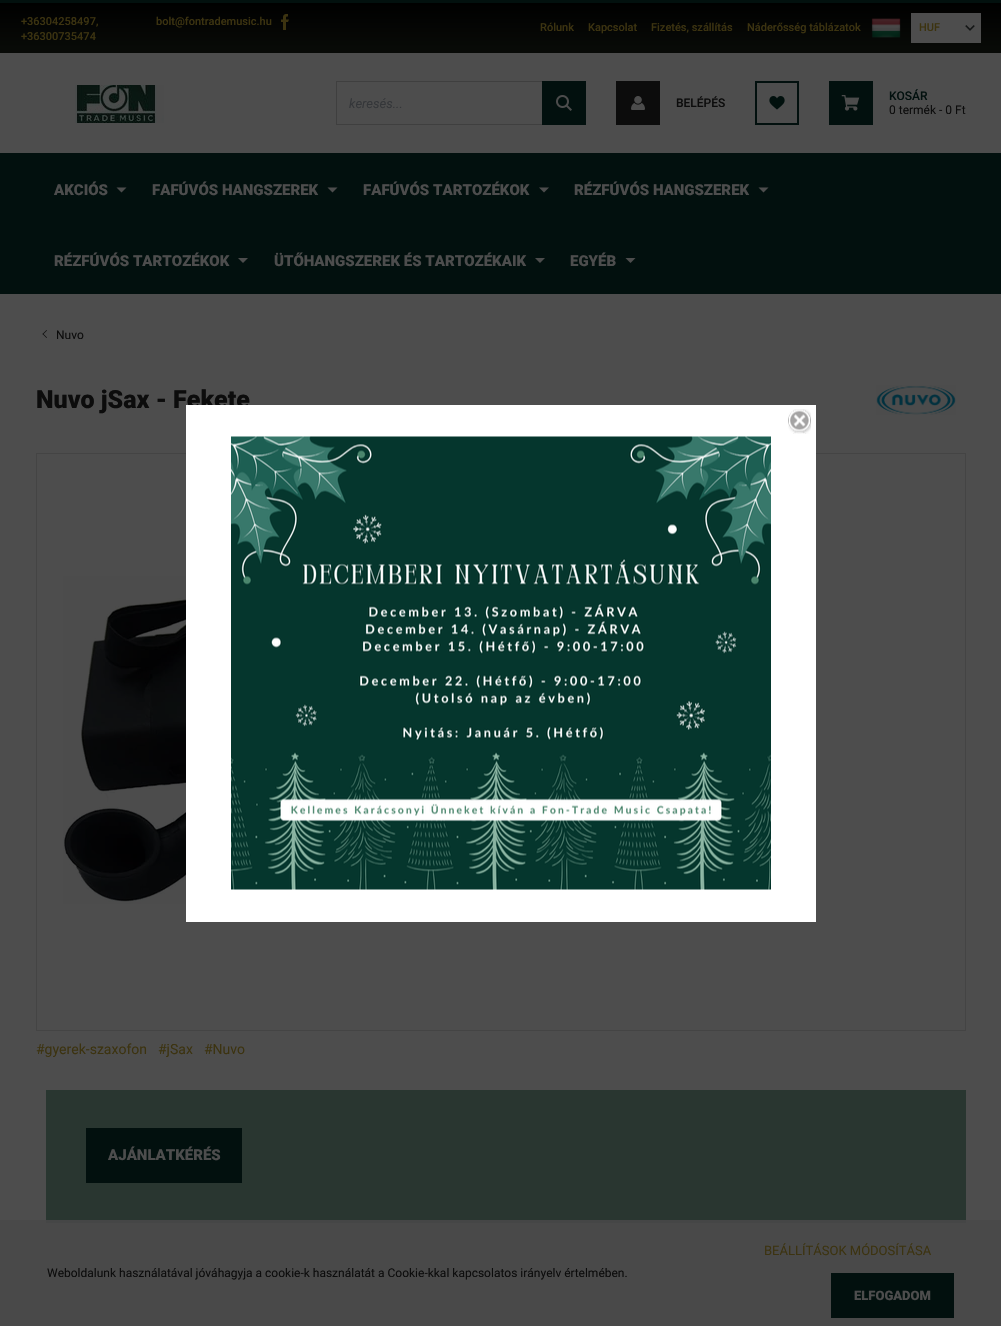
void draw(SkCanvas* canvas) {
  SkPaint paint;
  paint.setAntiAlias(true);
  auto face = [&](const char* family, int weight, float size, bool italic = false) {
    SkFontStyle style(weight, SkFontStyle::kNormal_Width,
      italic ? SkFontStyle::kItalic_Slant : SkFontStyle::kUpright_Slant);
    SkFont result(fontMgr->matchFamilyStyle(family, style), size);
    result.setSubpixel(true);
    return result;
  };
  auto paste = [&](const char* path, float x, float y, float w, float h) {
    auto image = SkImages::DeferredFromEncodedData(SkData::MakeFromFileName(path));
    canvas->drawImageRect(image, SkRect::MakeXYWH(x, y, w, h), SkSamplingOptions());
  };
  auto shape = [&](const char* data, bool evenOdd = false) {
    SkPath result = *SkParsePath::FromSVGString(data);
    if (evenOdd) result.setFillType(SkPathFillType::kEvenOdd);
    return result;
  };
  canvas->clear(0xff4d4d4d);
  paint.setColor(0xff494949);
  canvas->drawRect(SkRect::MakeXYWH(0, 1220, 1001, 106), paint);
  paint.setColor(0xff02100e);
  canvas->drawRect(SkRect::MakeXYWH(0, 0, 1001, 3), paint);
  {
    const SkColor colors[] = {0xff000000, 0xff080a07};
    const float stops[] = {0, 0.9f};
    const SkPoint ends[] = {{501, 3}, {501, 53}};
    paint.setShader(SkGradientShader::MakeLinear(ends, colors, stops, 2, SkTileMode::kClamp));
    paint.setAlpha(255);
  }
  canvas->drawRect(SkRect::MakeXYWH(0, 3, 1001, 50), paint);
  paste("img/1.png", 281, 14, 8, 16);
  paste("img/2.png", 871, 18, 30, 20);
  paint.setShader(nullptr);
  paint.setColor(0xff4d4d4d);
  canvas->drawRect(SkRect::MakeXYWH(911, 13, 70, 30), paint);
  paste("img/3.png", 965, 25, 10, 6);
  paste("img/4.png", 75, 85, 89, 38);
  paint.setStroke(true);
  paint.setStrokeWidth(1);
  paint.setColor(0xff3f3f3f);
  canvas->drawRect(SkRect::MakeXYWH(336.5f, 81.5f, 249, 43), paint);
  paint.setStroke(false);
  paint.setColor(0xff02100e);
  canvas->drawRect(SkRect::MakeXYWH(542, 81, 44, 44), paint);
  paste("img/5.png", 556, 95, 16, 16);
  paint.setColor(0xff0c0c0c);
  canvas->drawRect(SkRect::MakeXYWH(616, 81, 44, 44), paint);
  paste("img/6.png", 631, 96, 14, 14);
  paint.setStroke(true);
  paint.setStrokeWidth(2);
  paint.setColor(0xff02100e);
  canvas->drawRect(SkRect::MakeXYWH(756, 82, 42, 42), paint);
  paste("img/7.png", 769, 96, 16, 14);
  paint.setStroke(false);
  canvas->drawRect(SkRect::MakeXYWH(829, 81, 44, 44), paint);
  paste("img/8.png", 841, 95, 19, 16);
  canvas->drawRect(SkRect::MakeXYWH(0, 153, 1001, 141), paint);
  paint.setColor(0xff4d4d4d);
  canvas->drawPath(shape("M116.5 187.5H126.5L121.5 192.5Z"), paint);
  canvas->drawPath(shape("M327.5 187.5H337.5L332.5 192.5Z"), paint);
  canvas->drawPath(shape("M539 187.5H549L544 192.5Z"), paint);
  canvas->drawPath(shape("M758.5 187.5H768.5L763.5 192.5Z"), paint);
  canvas->drawPath(shape("M238 258H248L243 263Z"), paint);
  canvas->drawPath(shape("M535 258H545L540 263Z"), paint);
  canvas->drawPath(shape("M625.5 258H635.5L630.5 263Z"), paint);
  paint.setColor(0xff0c0c0c);
  canvas->drawPath(shape("M47 337.5L46.5 338L42.5 334L43 333.5Z"), paint);
  canvas->drawPath(shape("M47 330.5L43 334.5L42.5 334L46.5 330Z"), paint);
  paste("img/9.png", 876, 385, 80, 30);
  paint.setStroke(true);
  paint.setStrokeWidth(1);
  paint.setColor(0xff444444);
  canvas->drawRect(SkRect::MakeXYWH(36.5f, 453.5f, 929, 577), paint);
  paste("img/10.png", 63, 576, 123, 328);
  paint.setStroke(false);
  {
    const struct { float x, y, w, h; SkColor color; } items[] = {
      {46, 1090, 920, 130, 0xff293630},
      {46, 1220, 920, 3, 0xff454646},
      {86, 1128, 156, 55, 0xff02100e},
      {831, 1273, 123, 45, 0xff02100e},
    };
    for (auto [x, y, w, h, color] : items) {
      paint.setColor(color);
      canvas->drawRect(SkRect::MakeXYWH(x, y, w, h), paint);
    }
  }
  auto f0 = face("Roboto", 500, 11);
  paint.setColor(0xff3c3310);
  {
    const struct { const char* s; float x, y; } items[] = {
      {"+36304258497,", 21, 25},
      {"+36300735474", 21, 40},
      {"bolt@fontrademusic.hu", 156, 25},
      {"Rólunk", 540, 31},
      {"Kapcsolat", 588, 31},
      {"Fizetés, szállítás", 651, 31},
      {"Náderősség táblázatok", 747, 31},
      {"HUF", 919, 31},
    };
    for (auto [s, x, y] : items) {
      canvas->drawString(s, x, y, f0, paint);
    }
  }
  auto f1 = face("Roboto", 400, 13, true);
  paint.setColor(0xff343639);
  canvas->drawString("keresés...", 349, 108, f1, paint);
  auto f2 = face("Roboto", 500, 12);
  paint.setColor(0xff0c0c0c);
  canvas->drawString("BELÉPÉS", 676, 107, f2, paint);
  paint.setColor(0xff02100e);
  canvas->drawString("KOSÁR", 889, 100, f2, paint);
  auto f3 = face("Roboto", 400, 12);
  paint.setColor(0xff0c0c0c);
  canvas->drawString("0 termék - 0 Ft", 889, 114, f3, paint);
  auto f4 = face("Roboto", 900, 15);
  paint.setColor(0xff4d4d4d);
  {
    const struct { const char* s; float x, y; } items[] = {
      {"AKCIÓS", 54, 195},
      {"FAFÚVÓS HANGSZEREK", 152, 195},
      {"FAFÚVÓS TARTOZÉKOK", 363, 195},
      {"RÉZFÚVÓS HANGSZEREK", 574, 195},
      {"RÉZFÚVÓS TARTOZÉKOK", 54, 266},
      {"ÜTŐHANGSZEREK ÉS TARTOZÉKAIK", 274, 266},
      {"EGYÉB", 570, 266},
    };
    for (auto [s, x, y] : items) {
      canvas->drawString(s, x, y, f4, paint);
    }
  }
  paint.setColor(0xff0c0c0c);
  canvas->drawString("Nuvo", 56, 339, f3, paint);
  auto f5 = face("Roboto", 900, 25);
  canvas->drawString("Nuvo jSax - Fekete", 36, 408, f5, paint);
  auto f6 = face("Roboto", 400, 14);
  paint.setColor(0xff3c3310);
  {
    const struct { const char* s; float x, y; } items[] = {
      {"#gyerek-szaxofon", 36, 1054},
      {"#jSax", 158, 1054},
      {"#Nuvo", 204, 1054},
    };
    for (auto [s, x, y] : items) {
      canvas->drawString(s, x, y, f6, paint);
    }
  }
  paint.setColor(0xff4d4d4d);
  canvas->drawString("AJÁNLATKÉRÉS", 108, 1160, f4, paint);
  paint.setColor(0xffffffff);
  canvas->drawRect(SkRect::MakeXYWH(186, 405, 630, 517), paint);
  paste("img/11.png", 788, 409, 23, 25);
  paste("img/12.png", 231, 436, 540, 454);
  paint.setColor(0xff0c0c0c);
  canvas->drawString("Weboldalunk használatával jóváhagyja a cookie-k használatát a Cookie-kkal kapcsolatos irányelv értelmében.", 47, 1277, f3, paint);
  auto f7 = face("Roboto", 400, 13);
  paint.setColor(0xff3c3310);
  canvas->drawString("BEÁLLÍTÁSOK MÓDOSÍTÁSA", 764, 1255, f7, paint);
  auto f8 = face("Roboto", 900, 13);
  paint.setColor(0xff4d4d4d);
  canvas->drawString("ELFOGADOM", 854, 1300, f8, paint);
}
